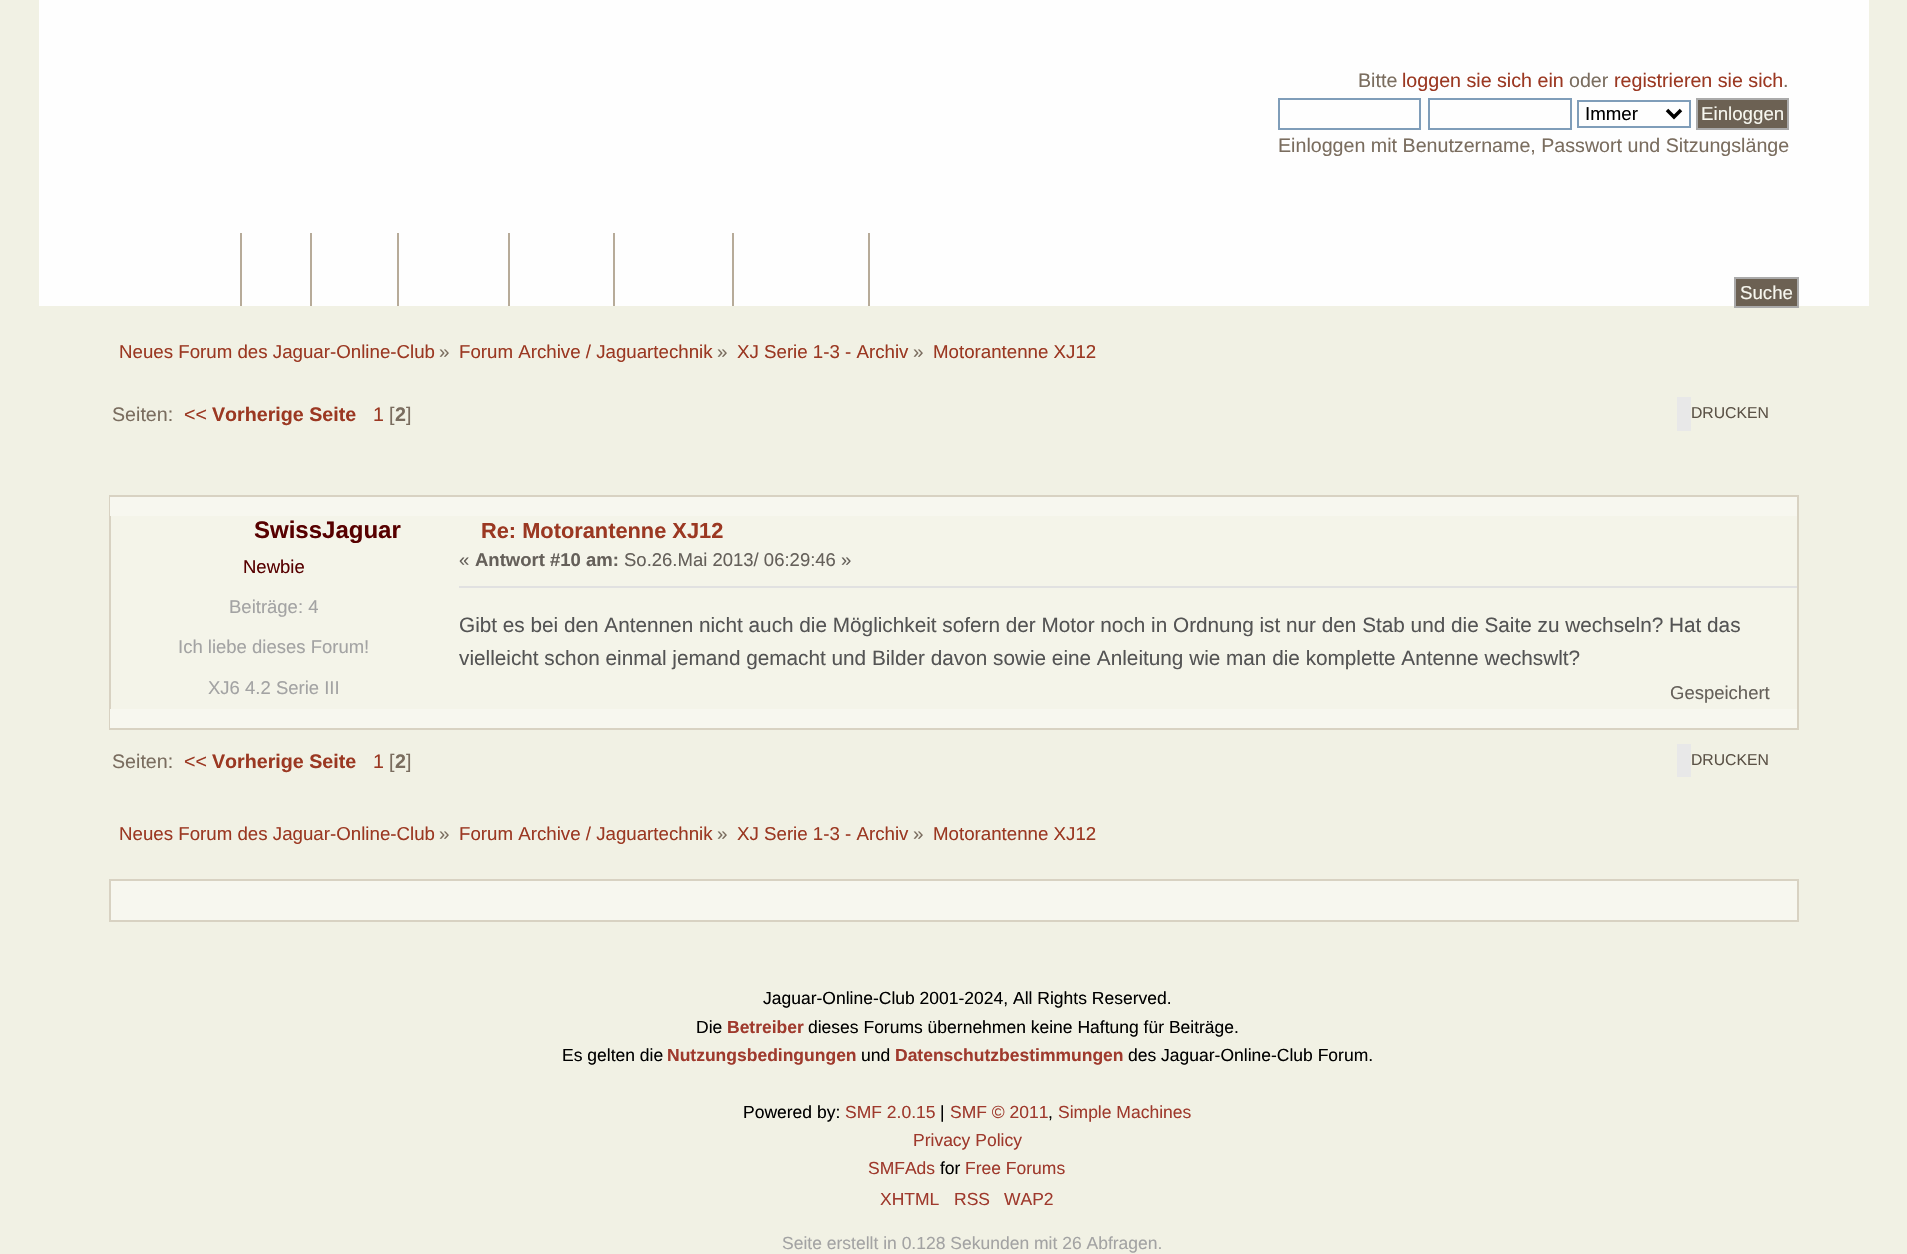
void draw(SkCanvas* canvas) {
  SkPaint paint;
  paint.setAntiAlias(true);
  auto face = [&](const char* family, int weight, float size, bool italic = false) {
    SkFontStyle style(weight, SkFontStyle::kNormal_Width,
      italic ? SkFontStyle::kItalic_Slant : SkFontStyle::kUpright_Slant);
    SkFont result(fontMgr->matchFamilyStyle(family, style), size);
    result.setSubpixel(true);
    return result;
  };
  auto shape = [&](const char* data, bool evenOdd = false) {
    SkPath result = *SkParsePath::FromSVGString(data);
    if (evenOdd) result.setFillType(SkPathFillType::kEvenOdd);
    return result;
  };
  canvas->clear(0xfff1f1e4);
  {
    const struct { float x, y, w, h; SkColor color; } items[] = {
      {39, 0, 1830, 306, 0xfffefefe},
      {240, 233, 2, 73, 0xffb7ab99},
      {310, 233, 2, 73, 0xffb7ab99},
      {397, 233, 2, 73, 0xffb7ab99},
      {508, 233, 2, 73, 0xffb7ab99},
      {613, 233, 2, 73, 0xffb7ab99},
      {732, 233, 2, 73, 0xffb7ab99},
      {868, 233, 2, 73, 0xffb7ab99},
    };
    for (auto [x, y, w, h, color] : items) {
      paint.setColor(color);
      canvas->drawRect(SkRect::MakeXYWH(x, y, w, h), paint);
    }
  }
  paint.setStroke(true);
  paint.setStrokeWidth(2);
  paint.setColor(0xff7f9db9);
  canvas->drawRect(SkRect::MakeXYWH(1279, 99, 141, 30), paint);
  canvas->drawRect(SkRect::MakeXYWH(1429, 99, 142, 30), paint);
  canvas->drawRect(SkRect::MakeXYWH(1578, 101, 112, 26), paint);
  paint.setStrokeWidth(3.5f);
  paint.setColor(0xff000000);
  canvas->drawPath(shape("M1667 110L1674 117L1681 110"), paint);
  paint.setStroke(false);
  paint.setColor(0xff6c6153);
  canvas->drawRect(SkRect::MakeXYWH(1697, 99, 91, 30), paint);
  paint.setStroke(true);
  paint.setStrokeWidth(2);
  paint.setColor(0xffaaaaaa);
  canvas->drawRect(SkRect::MakeXYWH(1697, 99, 91, 30), paint);
  paint.setStroke(false);
  paint.setColor(0xff6c6153);
  canvas->drawRect(SkRect::MakeXYWH(1735, 278, 63, 29), paint);
  paint.setStroke(true);
  paint.setColor(0xffaaaaaa);
  canvas->drawRect(SkRect::MakeXYWH(1735, 278, 63, 29), paint);
  paint.setStroke(false);
  {
    const struct { float x, y, w, h; SkColor color; } items[] = {
      {1677, 397, 14, 34, 0xffe8e8e8},
      {111, 516, 1686, 193, 0xfff4f4e9},
      {1797, 495, 2, 235, 0xffd8d2c2},
      {109, 495, 2, 235, 0xffd8d2c2},
      {110, 497, 1687, 19, 0xfff7f7ef},
      {110, 495, 1687, 2, 0xffd8d2c2},
      {459, 586, 1338, 2, 0xffe1e1e1},
      {110, 709, 1687, 19, 0xfff7f7ef},
      {110, 728, 1687, 2, 0xffd8d2c2},
      {1677, 744, 14, 33, 0xffe8e8e8},
    };
    for (auto [x, y, w, h, color] : items) {
      paint.setColor(color);
      canvas->drawRect(SkRect::MakeXYWH(x, y, w, h), paint);
    }
  }
  paint.setColor(0xfff7f7ef);
  canvas->drawRect(SkRect::MakeXYWH(110, 880, 1688, 41), paint);
  paint.setStroke(true);
  paint.setColor(0xffd8d2c2);
  canvas->drawRect(SkRect::MakeXYWH(110, 880, 1688, 41), paint);
  auto f0 = face("Liberation Sans", 400, 19.65f);
  paint.setStroke(false);
  paint.setColor(0xff7a6d5f);
  canvas->drawString("Bitte", 1358, 87, f0, paint);
  paint.setColor(0xff9b3822);
  canvas->drawString("loggen sie sich ein", 1402, 87, f0, paint);
  paint.setColor(0xff7a6d5f);
  canvas->drawString("oder", 1569, 87, f0, paint);
  paint.setColor(0xff9b3822);
  canvas->drawString("registrieren sie sich", 1614, 87, f0, paint);
  paint.setColor(0xff7a6d5f);
  canvas->drawString(".", 1783, 87, f0, paint);
  auto f1 = face("Liberation Sans", 400, 18.7f);
  paint.setColor(0xff000000);
  canvas->drawString("Immer", 1585, 120, f1, paint);
  paint.setColor(0xfff7f7ef);
  canvas->drawString("Einloggen", 1701, 120, f1, paint);
  paint.setColor(0xff7a6d5f);
  canvas->drawString("Einloggen mit Benutzername, Passwort und Sitzungslänge", 1278, 152, f0, paint);
  paint.setColor(0xfff7f7ef);
  canvas->drawString("Suche", 1740, 299, f1, paint);
  paint.setColor(0xff9b3822);
  canvas->drawString("Neues Forum des Jaguar-Online-Club", 119, 358, f1, paint);
  paint.setColor(0xff7a6d5f);
  canvas->drawString("»", 439, 358, f1, paint);
  paint.setColor(0xff9b3822);
  canvas->drawString("Forum Archive / Jaguartechnik", 459, 358, f1, paint);
  paint.setColor(0xff7a6d5f);
  canvas->drawString("»", 717, 358, f1, paint);
  paint.setColor(0xff9b3822);
  canvas->drawString("XJ Serie 1-3 - Archiv", 737, 358, f1, paint);
  paint.setColor(0xff7a6d5f);
  canvas->drawString("»", 913, 358, f1, paint);
  paint.setColor(0xff9b3822);
  canvas->drawString("Motorantenne XJ12", 933, 358, f1, paint);
  paint.setColor(0xff7a6d5f);
  canvas->drawString("Seiten:", 112, 421, f0, paint);
  paint.setColor(0xff9b3822);
  canvas->drawString("<<", 184, 421, f0, paint);
  auto f2 = face("Liberation Sans", 700, 19.65f);
  canvas->drawString("Vorherige Seite", 212, 421, f2, paint);
  canvas->drawString("1", 373, 421, f0, paint);
  paint.setColor(0xff7a6d5f);
  canvas->drawString("[", 389, 421, f0, paint);
  canvas->drawString("2", 395, 421, f2, paint);
  canvas->drawString("]", 406, 421, f0, paint);
  auto f3 = face("Liberation Sans", 400, 15.75f);
  paint.setColor(0xff5c5347);
  canvas->drawString("DRUCKEN", 1691, 418, f3, paint);
  auto f4 = face("Liberation Sans", 700, 24);
  paint.setColor(0xff570000);
  canvas->drawString("SwissJaguar", 254, 538, f4, paint);
  auto f5 = face("Liberation Sans", 400, 18.5f);
  canvas->drawString("Newbie", 243, 573, f5, paint);
  paint.setColor(0xffa3a3a3);
  {
    const struct { const char* s; float x, y; } items[] = {
      {"Beiträge: 4", 229, 613},
      {"Ich liebe dieses Forum!", 178, 653},
      {"XJ6 4.2 Serie III", 208, 694},
    };
    for (auto [s, x, y] : items) {
      canvas->drawString(s, x, y, f5, paint);
    }
  }
  auto f6 = face("Liberation Sans", 700, 21.8f);
  paint.setColor(0xff9b3822);
  canvas->drawString("Re: Motorantenne XJ12", 481, 538, f6, paint);
  paint.setColor(0xff65605a);
  canvas->drawString("«", 459, 566, f5, paint);
  auto f7 = face("Liberation Sans", 700, 18.5f);
  canvas->drawString("Antwort #10 am:", 475, 566, f7, paint);
  canvas->drawString("So.26.Mai 2013/ 06:29:46 »", 624, 566, f5, paint);
  auto f8 = face("Liberation Sans", 400, 20.75f);
  paint.setColor(0xff545454);
  canvas->drawString("Gibt es bei den Antennen nicht auch die Möglichkeit sofern der Motor noch in Ordnung ist nur den Stab und die Saite zu wechseln? Hat das", 459, 632, f8, paint);
  canvas->drawString("vielleicht schon einmal jemand gemacht und Bilder davon sowie eine Anleitung wie man die komplette Antenne wechswlt?", 459, 665, f8, paint);
  paint.setColor(0xff65605a);
  canvas->drawString("Gespeichert", 1670, 699, f5, paint);
  paint.setColor(0xff7a6d5f);
  canvas->drawString("Seiten:", 112, 768, f0, paint);
  paint.setColor(0xff9b3822);
  canvas->drawString("<<", 184, 768, f0, paint);
  canvas->drawString("Vorherige Seite", 212, 768, f2, paint);
  canvas->drawString("1", 373, 768, f0, paint);
  paint.setColor(0xff7a6d5f);
  canvas->drawString("[", 389, 768, f0, paint);
  canvas->drawString("2", 395, 768, f2, paint);
  canvas->drawString("]", 406, 768, f0, paint);
  paint.setColor(0xff5c5347);
  canvas->drawString("DRUCKEN", 1691, 765, f3, paint);
  paint.setColor(0xff9b3822);
  canvas->drawString("Neues Forum des Jaguar-Online-Club", 119, 840, f1, paint);
  paint.setColor(0xff7a6d5f);
  canvas->drawString("»", 439, 840, f1, paint);
  paint.setColor(0xff9b3822);
  canvas->drawString("Forum Archive / Jaguartechnik", 459, 840, f1, paint);
  paint.setColor(0xff7a6d5f);
  canvas->drawString("»", 717, 840, f1, paint);
  paint.setColor(0xff9b3822);
  canvas->drawString("XJ Serie 1-3 - Archiv", 737, 840, f1, paint);
  paint.setColor(0xff7a6d5f);
  canvas->drawString("»", 913, 840, f1, paint);
  paint.setColor(0xff9b3822);
  canvas->drawString("Motorantenne XJ12", 933, 840, f1, paint);
  auto f9 = face("Liberation Sans", 400, 17.5f);
  paint.setColor(0xff000000);
  canvas->drawString("Jaguar-Online-Club 2001-2024, All Rights Reserved.", 763, 1004, f9, paint);
  canvas->drawString("Die", 696, 1033, f9, paint);
  auto f10 = face("Liberation Sans", 700, 17.5f);
  paint.setColor(0xff9f3a2d);
  canvas->drawString("Betreiber", 727, 1033, f10, paint);
  paint.setColor(0xff000000);
  canvas->drawString("dieses Forums übernehmen keine Haftung für Beiträge.", 808, 1033, f9, paint);
  canvas->drawString("Es gelten die", 562, 1061, f9, paint);
  paint.setColor(0xff9f3a2d);
  canvas->drawString("Nutzungsbedingungen", 667, 1061, f10, paint);
  paint.setColor(0xff000000);
  canvas->drawString("und", 861, 1061, f9, paint);
  paint.setColor(0xff9f3a2d);
  canvas->drawString("Datenschutzbestimmungen", 895, 1061, f10, paint);
  paint.setColor(0xff000000);
  canvas->drawString("des Jaguar-Online-Club Forum.", 1128, 1061, f9, paint);
  canvas->drawString("Powered by:", 743, 1118, f9, paint);
  paint.setColor(0xff9f3a2d);
  canvas->drawString("SMF 2.0.15", 845, 1118, f9, paint);
  paint.setColor(0xff000000);
  canvas->drawString("|", 940, 1118, f9, paint);
  paint.setColor(0xff9f3a2d);
  canvas->drawString("SMF © 2011", 950, 1118, f9, paint);
  paint.setColor(0xff000000);
  canvas->drawString(",", 1048, 1118, f9, paint);
  paint.setColor(0xff9f3a2d);
  {
    const struct { const char* s; float x, y; } items[] = {
      {"Simple Machines", 1058, 1118},
      {"Privacy Policy", 913, 1146},
      {"SMFAds", 868, 1174},
    };
    for (auto [s, x, y] : items) {
      canvas->drawString(s, x, y, f9, paint);
    }
  }
  paint.setColor(0xff000000);
  canvas->drawString("for", 940, 1174, f9, paint);
  paint.setColor(0xff9f3a2d);
  {
    const struct { const char* s; float x, y; } items[] = {
      {"Free Forums", 965, 1174},
      {"XHTML", 880, 1205},
      {"RSS", 954, 1205},
      {"WAP2", 1004, 1205},
    };
    for (auto [s, x, y] : items) {
      canvas->drawString(s, x, y, f9, paint);
    }
  }
  paint.setColor(0xffa3a3a3);
  canvas->drawString("Seite erstellt in 0.128 Sekunden mit 26 Abfragen.", 782, 1249, f9, paint);
}
